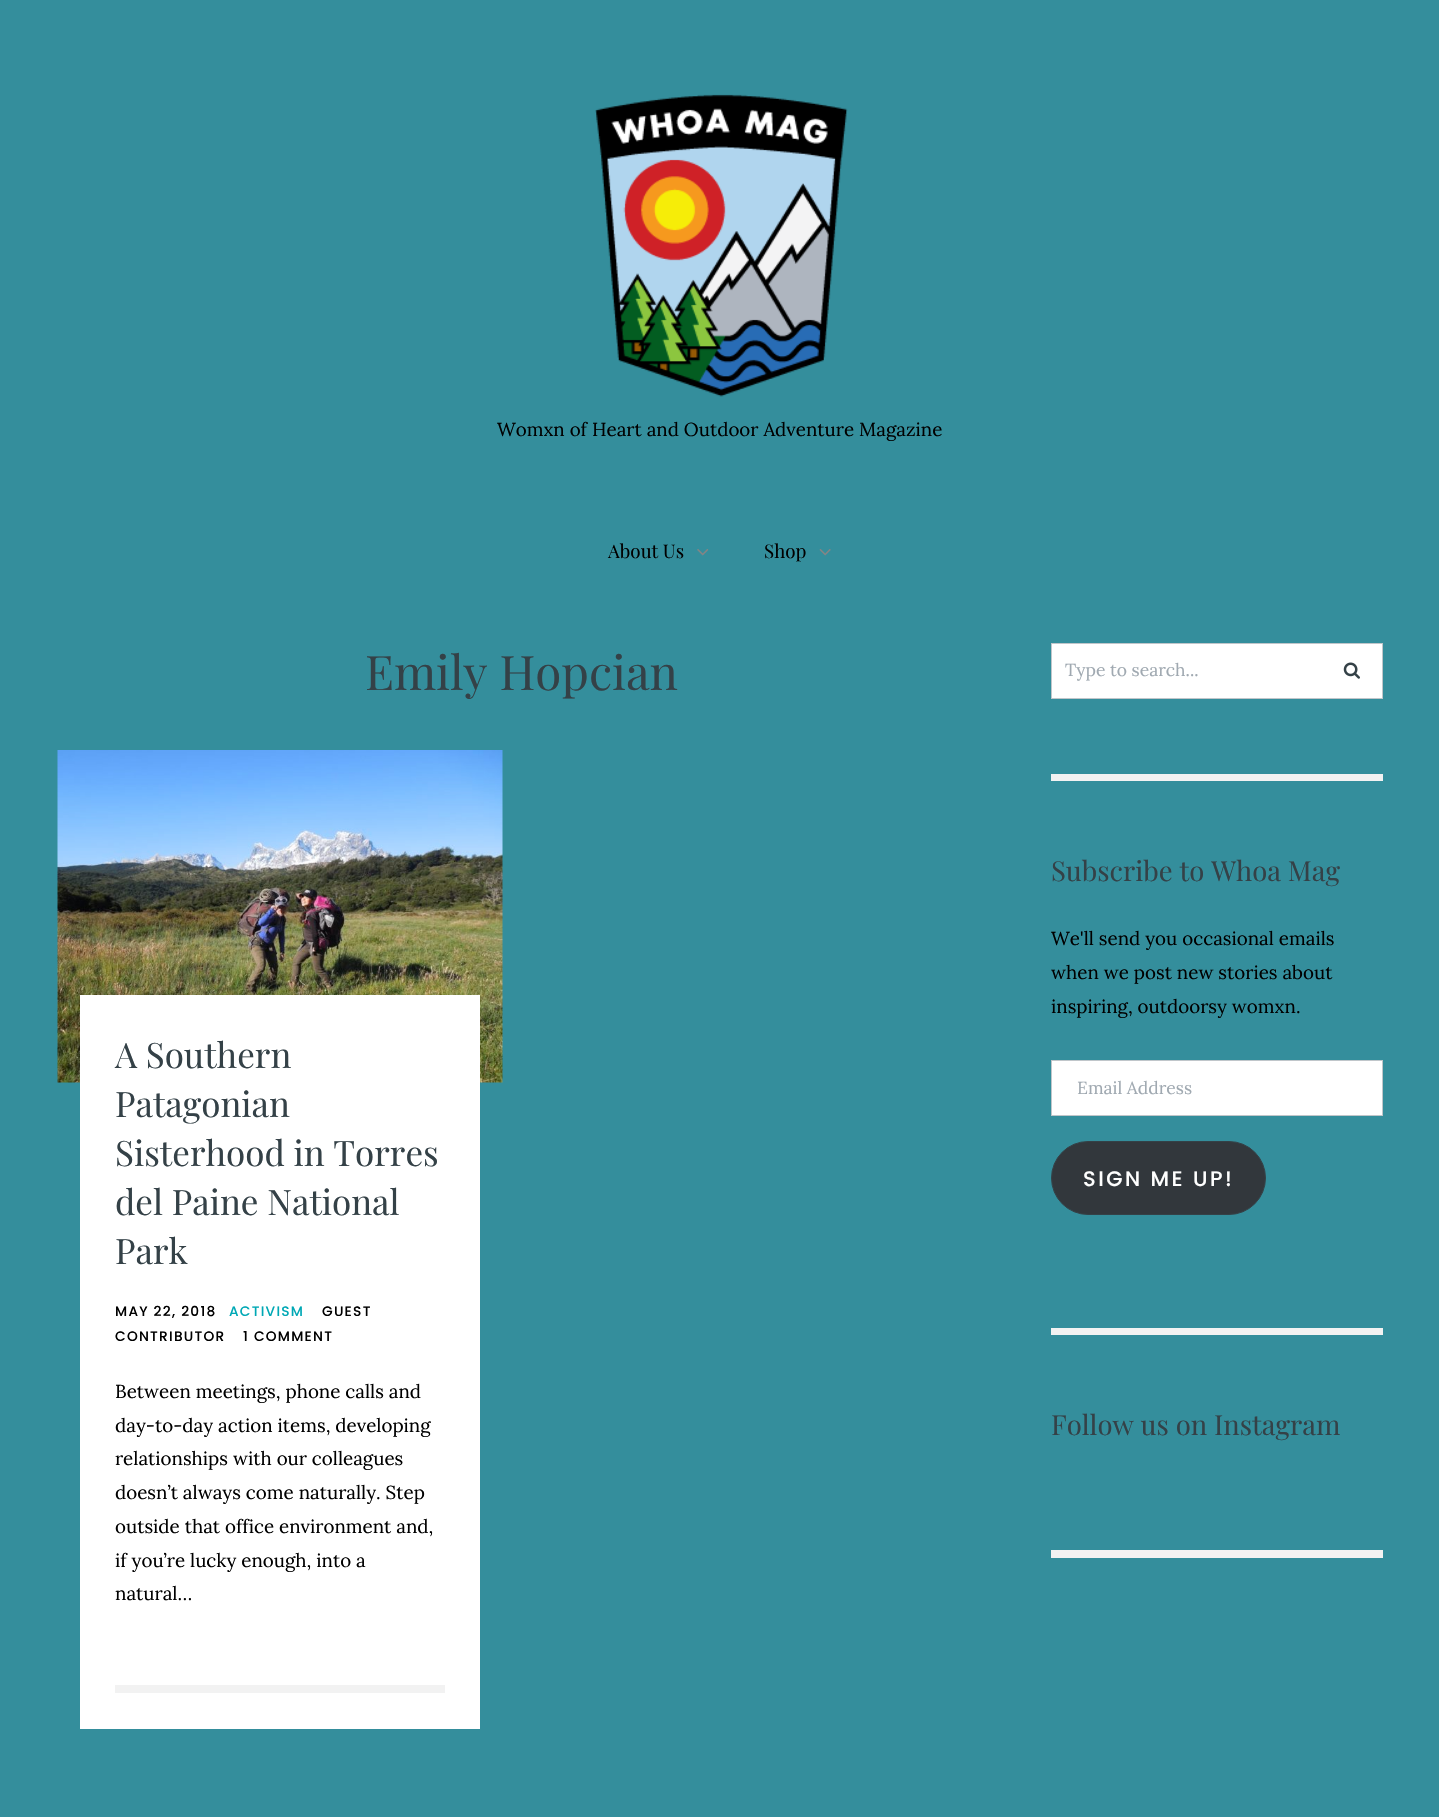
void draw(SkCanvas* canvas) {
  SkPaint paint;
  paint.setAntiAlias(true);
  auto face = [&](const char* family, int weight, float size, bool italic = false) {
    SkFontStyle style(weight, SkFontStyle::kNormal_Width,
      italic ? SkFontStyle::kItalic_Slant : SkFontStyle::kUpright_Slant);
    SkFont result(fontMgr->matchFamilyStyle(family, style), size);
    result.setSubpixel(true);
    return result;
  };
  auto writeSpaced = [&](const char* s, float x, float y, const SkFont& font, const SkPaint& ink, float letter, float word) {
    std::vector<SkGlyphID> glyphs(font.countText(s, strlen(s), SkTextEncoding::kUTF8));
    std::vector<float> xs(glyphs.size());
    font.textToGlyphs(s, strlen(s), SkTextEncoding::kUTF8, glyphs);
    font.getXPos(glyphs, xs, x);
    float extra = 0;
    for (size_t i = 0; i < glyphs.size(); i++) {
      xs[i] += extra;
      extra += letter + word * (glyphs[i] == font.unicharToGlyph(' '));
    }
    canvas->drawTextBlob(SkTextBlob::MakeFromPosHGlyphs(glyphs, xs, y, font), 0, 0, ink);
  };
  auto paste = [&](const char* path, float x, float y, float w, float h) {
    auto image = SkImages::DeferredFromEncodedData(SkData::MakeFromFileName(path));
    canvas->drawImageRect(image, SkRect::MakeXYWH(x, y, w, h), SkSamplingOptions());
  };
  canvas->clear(0xff348e9c);
  paste("img/1.png", 595, 94, 253, 303);
  paste("img/2.png", 697, 549, 12, 7);
  paste("img/3.png", 819, 549, 12, 7);
  paste("img/4.png", 57, 750, 446, 333);
  {
    const struct { float x, y, w, h; SkColor color; } items[] = {
      {80, 995, 400, 734, 0xffffffff},
      {115, 1685, 330, 8, 0xfff2f2f2},
      {1051, 774, 332, 7, 0xfff2f2f2},
    };
    for (auto [x, y, w, h, color] : items) {
      paint.setColor(color);
      canvas->drawRect(SkRect::MakeXYWH(x, y, w, h), paint);
    }
  }
  paint.setColor(0xffffffff);
  canvas->drawRect(SkRect::MakeXYWH(1051.5f, 643.5f, 331, 55), paint);
  paint.setStroke(true);
  paint.setStrokeWidth(1);
  paint.setColor(0xffc0c6ca);
  canvas->drawRect(SkRect::MakeXYWH(1051.5f, 643.5f, 331, 55), paint);
  paste("img/5.png", 1343, 662, 17, 17);
  paint.setStroke(false);
  paint.setColor(0xfff2f2f2);
  canvas->drawRect(SkRect::MakeXYWH(1051, 1328, 332, 7), paint);
  paint.setColor(0xffffffff);
  canvas->drawRect(SkRect::MakeXYWH(1051.5f, 1060.5f, 331, 55), paint);
  paint.setStroke(true);
  paint.setColor(0xffc0c6ca);
  canvas->drawRect(SkRect::MakeXYWH(1051.5f, 1060.5f, 331, 55), paint);
  paint.setStroke(false);
  paint.setColor(0xff32373c);
  canvas->drawRoundRect(SkRect::MakeXYWH(1051.5f, 1141.5f, 214, 73), 36.5f, 36.5f, paint);
  paint.setStroke(true);
  paint.setColor(0xff344147);
  canvas->drawRoundRect(SkRect::MakeXYWH(1051.5f, 1141.5f, 214, 73), 36.5f, 36.5f, paint);
  paint.setStroke(false);
  paint.setColor(0xfff2f2f2);
  canvas->drawRect(SkRect::MakeXYWH(1051, 1550, 332, 8), paint);
  auto f0 = face("Lora", 400, 18.75f);
  paint.setColor(0xff000000);
  canvas->drawString("Womxn of Heart and Outdoor Adventure Magazine", 497, 436, f0, paint);
  auto f1 = face("Playfair Display", 400, 18.75f);
  canvas->drawString("About Us", 608, 558, f1, paint);
  canvas->drawString("Shop", 764, 558, f1, paint);
  auto f2 = face("Playfair Display", 400, 47.5f);
  paint.setColor(0xff344147);
  canvas->drawString("Emily Hopcian", 365, 690, f2, paint);
  auto f3 = face("Playfair Display", 400, 35);
  {
    const struct { const char* s; float x, y; } items[] = {
      {"A Southern", 115, 1068},
      {"Patagonian", 115, 1117},
      {"Sisterhood in Torres", 115, 1166},
      {"del Paine National", 115, 1215},
      {"Park", 115, 1264},
    };
    for (auto [s, x, y] : items) {
      canvas->drawString(s, x, y, f3, paint);
    }
  }
  auto f4 = face("Poppins", 500, 13.75f);
  paint.setColor(0xff000000);
  writeSpaced("MAY 22, 2018", 115, 1316, f4, paint, 1.25f, 0);
  paint.setColor(0xff00a8b5);
  writeSpaced("ACTIVISM", 229, 1316, f4, paint, 1.25f, 0);
  paint.setColor(0xff000000);
  {
    const struct { const char* s; float x, y; } items[] = {
      {"GUEST", 322, 1316},
      {"CONTRIBUTOR", 115, 1341},
      {"1 COMMENT", 243, 1341},
    };
    for (auto [s, x, y] : items) {
      writeSpaced(s, x, y, f4, paint, 1.25f, 0);
    }
  }
  {
    const struct { const char* s; float x, y; } items[] = {
      {"Between meetings, phone calls and", 115, 1398},
      {"day-to-day action items, developing", 115, 1432},
      {"relationships with our colleagues", 115, 1465},
      {"doesn’t always come naturally. Step", 115, 1499},
      {"outside that office environment and,", 115, 1533},
      {"if you’re lucky enough, into a", 115, 1567},
      {"natural…", 115, 1600},
    };
    for (auto [s, x, y] : items) {
      canvas->drawString(s, x, y, f0, paint);
    }
  }
  auto f5 = face("Lora", 400, 17.5f);
  paint.setColor(0xffa0a9b1);
  canvas->drawString("Type to search...", 1065, 676, f5, paint);
  auto f6 = face("Playfair Display", 400, 27.5f);
  paint.setColor(0xff344147);
  canvas->drawString("Subscribe to Whoa Mag", 1051, 881, f6, paint);
  paint.setColor(0xff000000);
  {
    const struct { const char* s; float x, y; } items[] = {
      {"We'll send you occasional emails", 1051, 945},
      {"when we post new stories about", 1051, 979},
      {"inspiring, outdoorsy womxn.", 1051, 1013},
    };
    for (auto [s, x, y] : items) {
      canvas->drawString(s, x, y, f0, paint);
    }
  }
  paint.setColor(0xffa0a9b1);
  canvas->drawString("Email Address", 1077, 1094, f5, paint);
  auto f7 = face("Poppins", 500, 21);
  paint.setColor(0xffffffff);
  writeSpaced("SIGN ME UP!", 1083, 1186, f7, paint, 2.5f, 0);
  paint.setColor(0xff344147);
  canvas->drawString("Follow us on Instagram", 1051, 1435, f6, paint);
}
